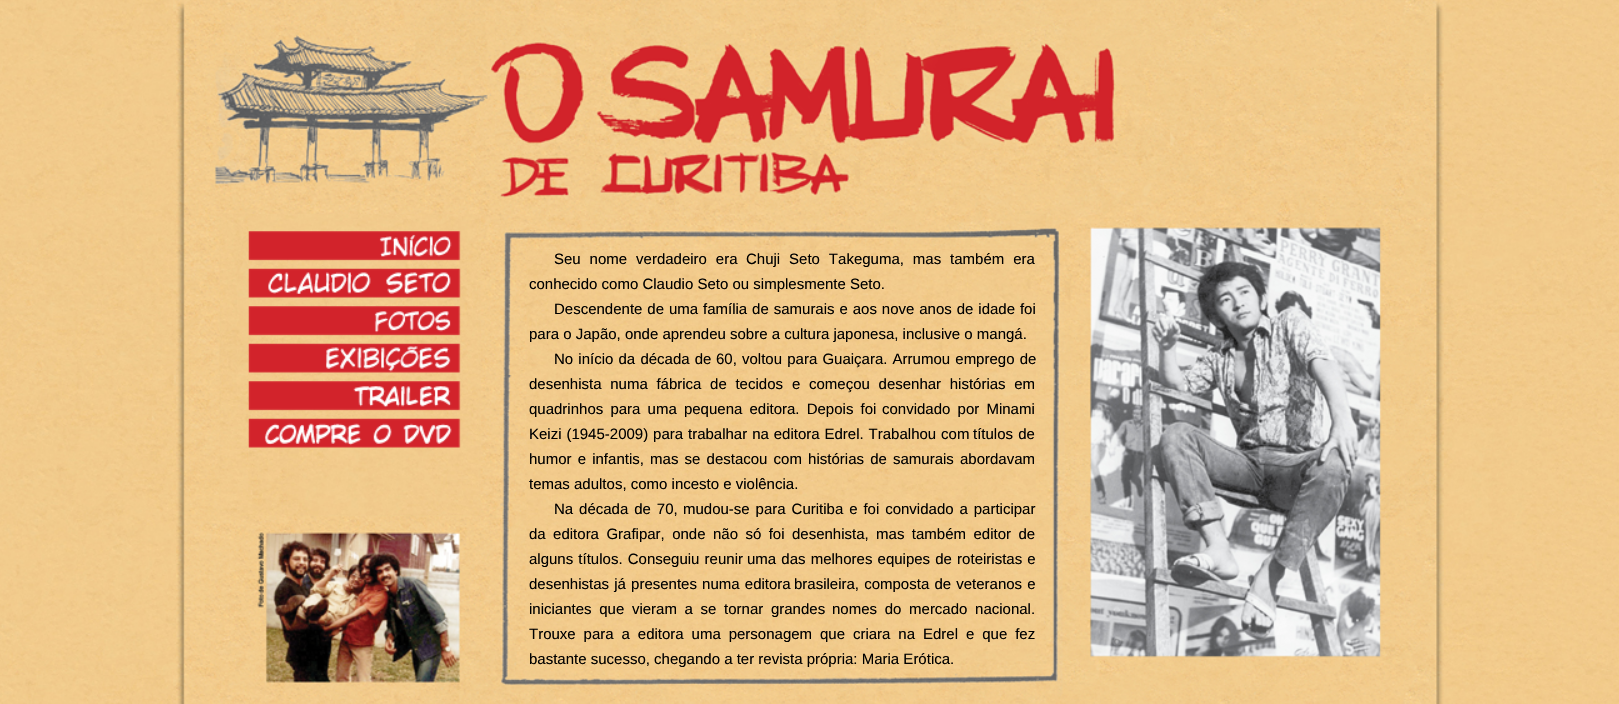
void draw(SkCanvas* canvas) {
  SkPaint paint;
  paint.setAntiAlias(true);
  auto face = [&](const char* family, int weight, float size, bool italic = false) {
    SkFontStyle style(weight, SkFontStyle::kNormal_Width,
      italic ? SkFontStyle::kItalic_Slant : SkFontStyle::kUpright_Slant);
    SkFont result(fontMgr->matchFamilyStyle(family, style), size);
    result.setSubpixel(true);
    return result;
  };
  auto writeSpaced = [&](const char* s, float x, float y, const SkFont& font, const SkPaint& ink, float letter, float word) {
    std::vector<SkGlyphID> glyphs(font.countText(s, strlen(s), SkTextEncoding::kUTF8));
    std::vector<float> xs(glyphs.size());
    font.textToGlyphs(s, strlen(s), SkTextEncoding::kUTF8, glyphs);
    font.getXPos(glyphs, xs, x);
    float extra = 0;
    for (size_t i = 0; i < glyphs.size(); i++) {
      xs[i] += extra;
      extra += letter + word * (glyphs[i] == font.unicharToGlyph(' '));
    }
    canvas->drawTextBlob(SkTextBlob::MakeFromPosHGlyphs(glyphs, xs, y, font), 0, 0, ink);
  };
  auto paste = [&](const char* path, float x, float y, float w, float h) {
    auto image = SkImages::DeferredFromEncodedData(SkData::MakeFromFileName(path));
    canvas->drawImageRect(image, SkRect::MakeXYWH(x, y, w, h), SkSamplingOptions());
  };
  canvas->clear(0xffffffff);
  paste("img/1.png", 0, 0, 1619, 704);
  paste("img/2.png", 176, 0, 1268, 704);
  paste("img/3.png", 248, 231, 213, 30);
  paste("img/4.png", 248, 268, 213, 30);
  paste("img/5.png", 248, 306, 213, 30);
  paste("img/6.png", 248, 343, 213, 30);
  paste("img/7.png", 248, 381, 213, 30);
  paste("img/8.png", 248, 418, 213, 30);
  auto f0 = face("Liberation Sans", 400, 15);
  paint.setColor(0xff000000);
  writeSpaced("Seu nome verdadeiro era", 554, 264, f0, paint, 0, 4.75f);
  writeSpaced("Chuji Seto Takeguma, mas também era", 746, 264, f0, paint, 0, 4.75f);
  canvas->drawString("conhecido como Claudio Seto ou simplesmente Seto.", 529, 289, f0, paint);
  writeSpaced("Descendente de uma", 554, 314, f0, paint, 0, 0.75f);
  writeSpaced("família de samurais e aos nove anos de idade foi", 703, 314, f0, paint, 0, 0.75f);
  canvas->drawString("para o Japão, onde aprendeu sobre a cultura japonesa, inclusive o mangá.", 529, 339, f0, paint);
  writeSpaced("No início da década de", 554, 364, f0, paint, 0, 1);
  writeSpaced("60, voltou para Guaiçara. Arrumou emprego de", 716, 364, f0, paint, 0, 1);
  writeSpaced("desenhista numa fábrica de tecidos", 529, 389, f0, paint, 0, 4.5f);
  writeSpaced("e começou desenhar histórias em", 792, 389, f0, paint, 0, 4.5f);
  writeSpaced("quadrinhos para uma pequena editora. Depois foi", 529, 414, f0, paint, 0, 3);
  writeSpaced("convidado por Minami", 882, 414, f0, paint, 0, 3);
  writeSpaced("Keizi (1945-2009) para trabalhar na editora Edrel. Trabalhou com", 529, 439, f0, paint, 0, 0.75f);
  writeSpaced("títulos de", 973, 439, f0, paint, 0, 1);
  writeSpaced("humor e infantis, mas se destacou com histórias de samurais", 529, 464, f0, paint, 0, 2);
  canvas->drawString("abordavam", 960, 464, f0, paint);
  canvas->drawString("temas adultos, como incesto e violência.", 529, 489, f0, paint);
  writeSpaced("Na década de 70,", 554, 514, f0, paint, 0, 1.75f);
  writeSpaced("mudou-se para Curitiba e foi convidado a participar", 683, 514, f0, paint, 0, 1.75f);
  writeSpaced("da editora Grafipar, onde", 529, 539, f0, paint, 0, 3.25f);
  writeSpaced("não só foi desenhista, mas também editor de", 713, 539, f0, paint, 0, 3.25f);
  {
    const struct { const char* s; float x, y; } items[] = {
      {"alguns títulos. Conseguiu reunir", 529, 564},
      {"uma das melhores equipes de roteiristas e", 747, 564},
      {"desenhistas já presentes numa editora", 529, 589},
      {"brasileira, composta de veteranos e", 794, 589},
    };
    for (auto [s, x, y] : items) {
      writeSpaced(s, x, y, f0, paint, 0, 1);
    }
  }
  writeSpaced("iniciantes que vieram a se tornar grandes", 529, 614, f0, paint, 0, 3.5f);
  writeSpaced("nomes do mercado nacional.", 832, 614, f0, paint, 0, 3.5f);
  writeSpaced("Trouxe para a editora uma personagem que criara na", 529, 639, f0, paint, 0, 3.75f);
  writeSpaced("Edrel e que fez", 923, 639, f0, paint, 0, 3.75f);
  canvas->drawString("bastante sucesso, chegando a ter revista própria: Maria Erótica.", 529, 664, f0, paint);
}
